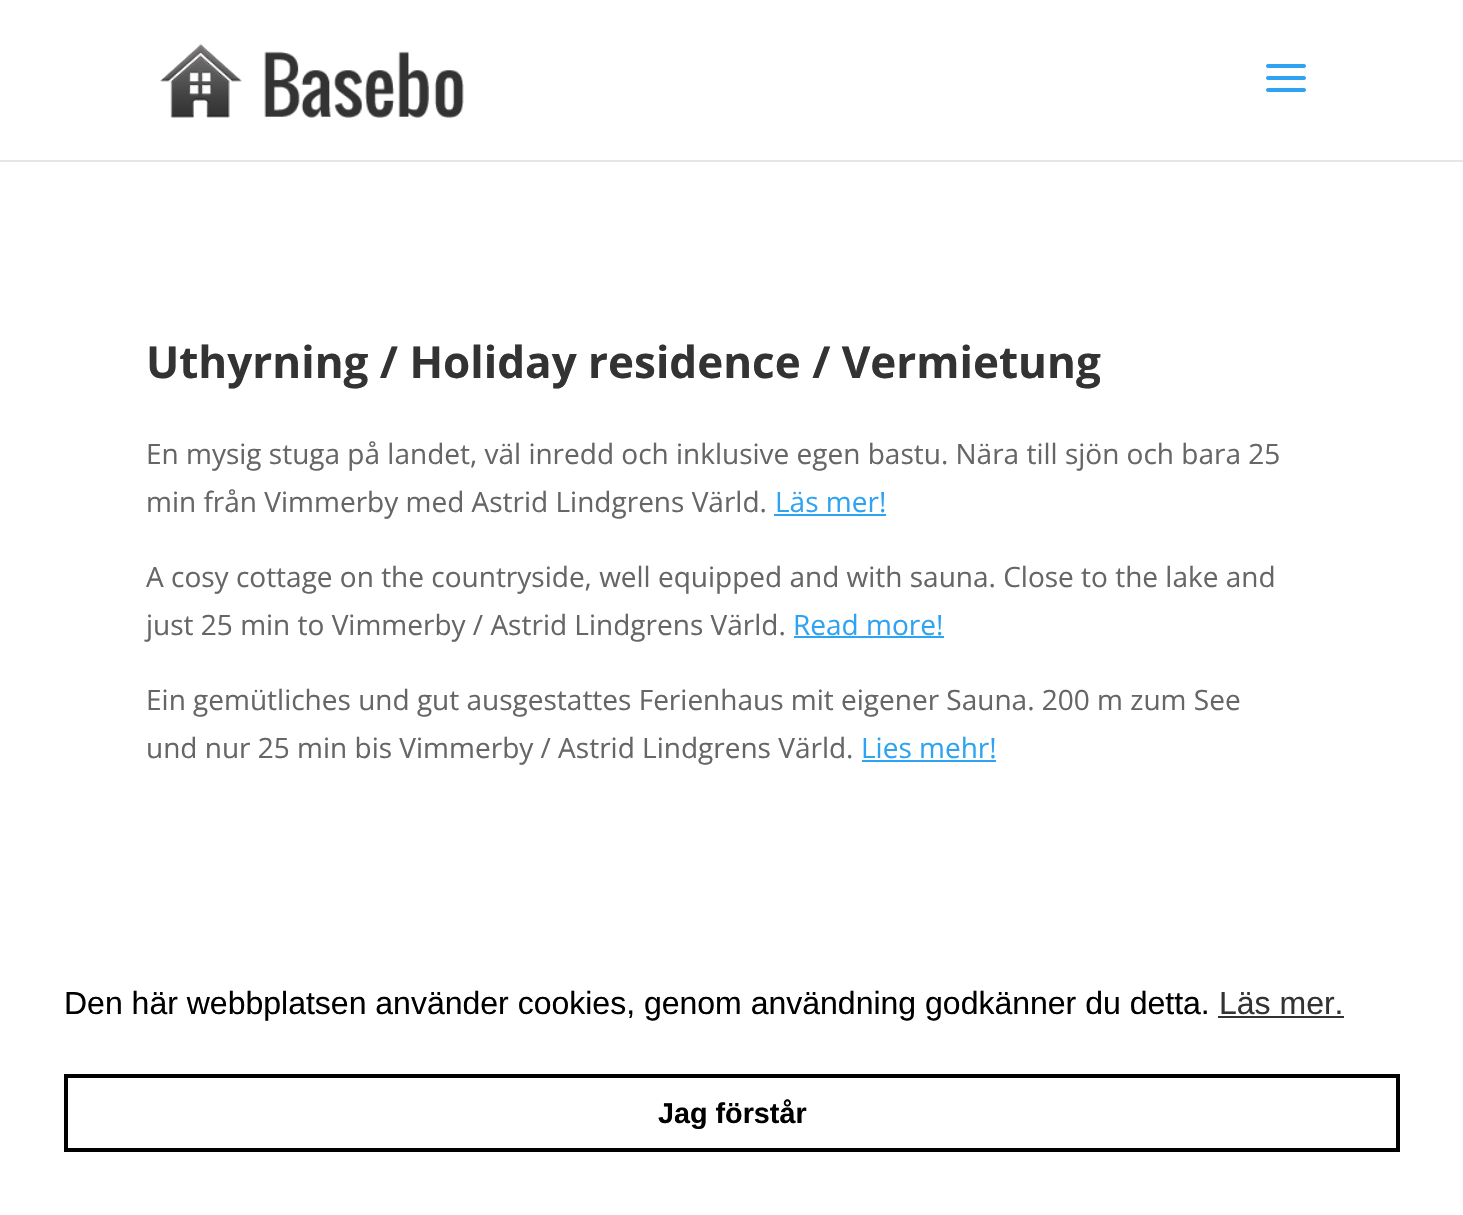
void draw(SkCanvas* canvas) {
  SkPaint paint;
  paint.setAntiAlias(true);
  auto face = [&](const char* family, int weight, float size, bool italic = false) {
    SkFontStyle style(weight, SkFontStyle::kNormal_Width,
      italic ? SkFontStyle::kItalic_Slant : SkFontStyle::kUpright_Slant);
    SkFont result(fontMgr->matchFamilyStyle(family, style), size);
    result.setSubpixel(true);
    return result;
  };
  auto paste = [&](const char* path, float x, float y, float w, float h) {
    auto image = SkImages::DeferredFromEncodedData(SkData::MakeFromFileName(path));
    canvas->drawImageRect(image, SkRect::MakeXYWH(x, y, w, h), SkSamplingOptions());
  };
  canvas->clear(0xffffffff);
  paint.setColor(0xffe6e6e6);
  canvas->drawRect(SkRect::MakeXYWH(0, 160, 1463, 2), paint);
  paste("img/1.png", 160, 44, 304, 74);
  paste("img/2.png", 1266, 64, 40, 28);
  {
    const struct { float x, y, w, h; SkColor color; } items[] = {
      {774, 514, 112, 2, 0xff2ea3f2},
      {794, 636, 150, 2, 0xff2ea3f2},
      {862, 760, 134, 2, 0xff2ea3f2},
      {1218, 1016, 126, 2, 0xff333333},
    };
    for (auto [x, y, w, h, color] : items) {
      paint.setColor(color);
      canvas->drawRect(SkRect::MakeXYWH(x, y, w, h), paint);
    }
  }
  paint.setStroke(true);
  paint.setStrokeWidth(4);
  paint.setColor(0xff000000);
  canvas->drawRect(SkRect::MakeXYWH(66, 1076, 1332, 74), paint);
  auto f0 = face("Open Sans", 700, 44);
  paint.setStroke(false);
  paint.setColor(0xff333333);
  canvas->drawString("Uthyrning / Holiday residence / Vermietung", 146, 378, f0, paint);
  auto f1 = face("Open Sans", 400, 28);
  paint.setColor(0xff666666);
  canvas->drawString("En mysig stuga på landet, väl inredd och inklusive egen bastu. Nära till sjön och bara 25", 146, 464, f1, paint);
  canvas->drawString("min från Vimmerby med Astrid Lindgrens Värld.", 146, 512, f1, paint);
  paint.setColor(0xff2ea3f2);
  canvas->drawString("Läs mer!", 775, 512, f1, paint);
  paint.setColor(0xff666666);
  canvas->drawString("A cosy cottage on the countryside, well equipped and with sauna. Close to the lake and", 146, 587, f1, paint);
  canvas->drawString("just 25 min to Vimmerby / Astrid Lindgrens Värld.", 146, 635, f1, paint);
  paint.setColor(0xff2ea3f2);
  canvas->drawString("Read more!", 793, 635, f1, paint);
  paint.setColor(0xff666666);
  canvas->drawString("Ein gemütliches und gut ausgestattes Ferienhaus mit eigener Sauna. 200 m zum See", 146, 710, f1, paint);
  canvas->drawString("und nur 25 min bis Vimmerby / Astrid Lindgrens Värld.", 146, 758, f1, paint);
  paint.setColor(0xff2ea3f2);
  canvas->drawString("Lies mehr!", 861, 758, f1, paint);
  auto f2 = face("Liberation Sans", 400, 32);
  paint.setColor(0xff000000);
  canvas->drawString("Den här webbplatsen använder cookies, genom användning godkänner du detta.", 64, 1014, f2, paint);
  paint.setColor(0xff333333);
  canvas->drawString("Läs mer.", 1219, 1014, f2, paint);
  auto f3 = face("Liberation Sans", 700, 28.75f);
  paint.setColor(0xff000000);
  canvas->drawString("Jag förstår", 658, 1123, f3, paint);
}
